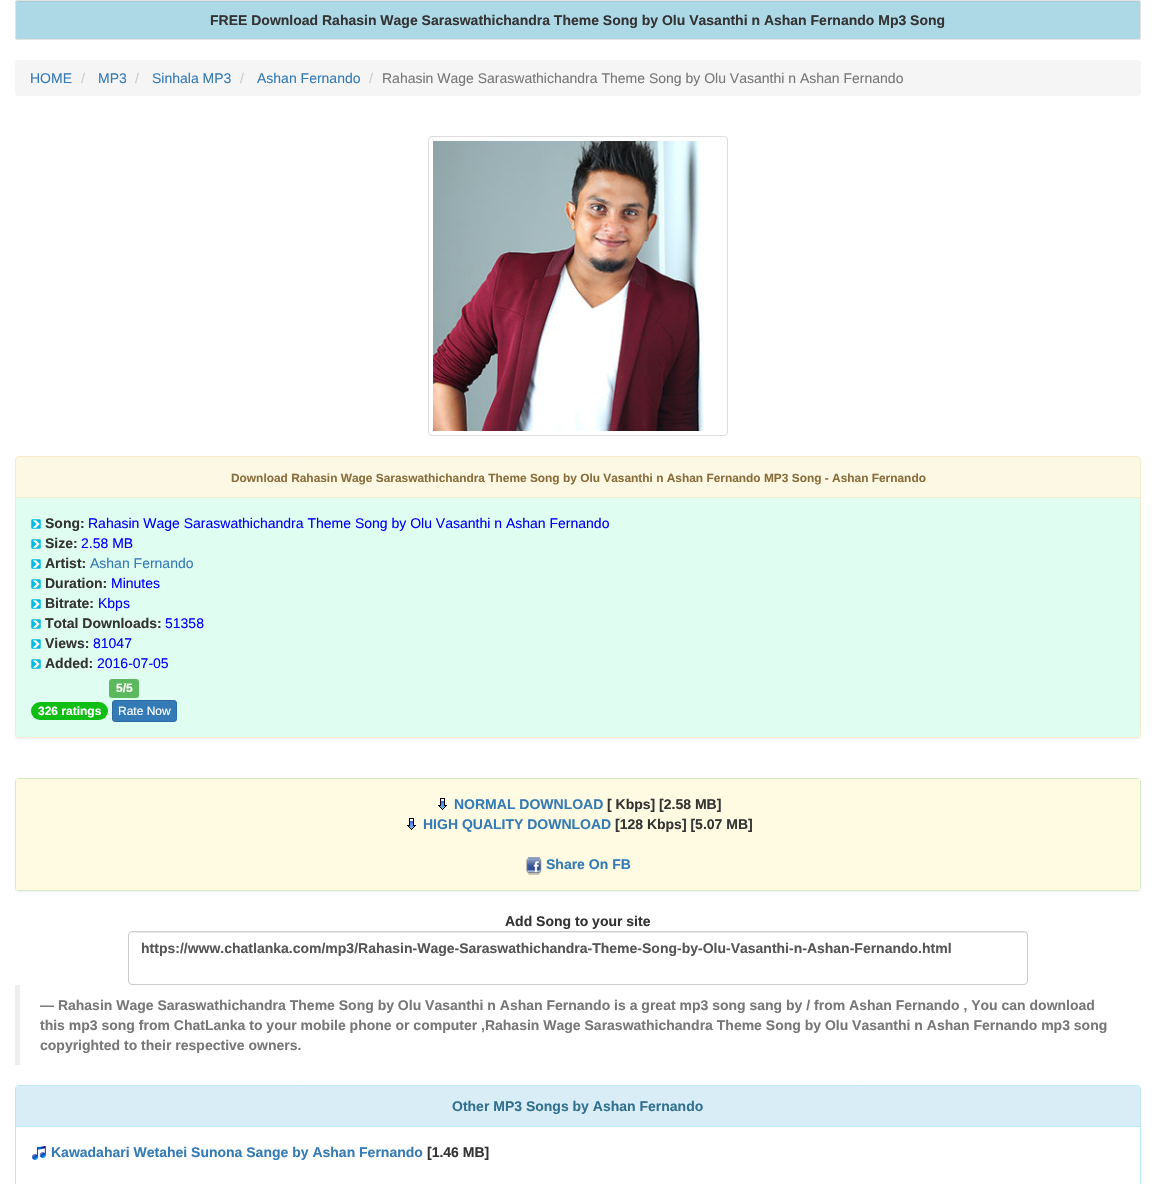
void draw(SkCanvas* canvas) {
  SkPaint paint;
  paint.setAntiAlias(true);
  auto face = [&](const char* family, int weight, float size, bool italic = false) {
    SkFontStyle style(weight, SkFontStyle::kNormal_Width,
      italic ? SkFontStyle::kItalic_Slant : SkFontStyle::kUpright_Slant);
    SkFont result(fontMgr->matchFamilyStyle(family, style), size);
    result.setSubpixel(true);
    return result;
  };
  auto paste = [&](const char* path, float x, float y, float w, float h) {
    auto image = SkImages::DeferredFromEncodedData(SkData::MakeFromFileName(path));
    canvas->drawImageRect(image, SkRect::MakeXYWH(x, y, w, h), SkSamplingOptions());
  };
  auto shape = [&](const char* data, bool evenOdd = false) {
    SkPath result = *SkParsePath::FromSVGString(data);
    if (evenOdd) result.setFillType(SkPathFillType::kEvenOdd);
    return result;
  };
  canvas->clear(0xffffffff);
  paint.setColor(0xffadd8e6);
  canvas->drawRoundRect(SkRect::MakeXYWH(15, 0, 1126, 40), 3, 3, paint);
  paint.setColor(0xffa4cddb);
  canvas->drawPath(shape("M18 2H1138C1139 2 1140 3 1140 4V3C1140 2 1139 1 1138 1H18C17 1 16 2 16 3V4C16 3 17 2 18 2Z"), paint);
  paint.setStroke(true);
  paint.setStrokeWidth(1);
  paint.setColor(0xffe3e3e3);
  canvas->drawRoundRect(SkRect::MakeXYWH(15.5f, 0.5f, 1125, 39), 2.5f, 2.5f, paint);
  paint.setStroke(false);
  paint.setColor(0xfff5f5f5);
  canvas->drawRoundRect(SkRect::MakeXYWH(15, 60, 1126, 36), 4, 4, paint);
  paint.setStroke(true);
  paint.setColor(0xffdddddd);
  canvas->drawRoundRect(SkRect::MakeXYWH(428.5f, 136.5f, 299, 299), 3.5f, 3.5f, paint);
  paste("img/1.png", 433, 141, 271, 290);
  paint.setStroke(false);
  paint.setColor(0x0d000000);
  paint.setMaskFilter(SkMaskFilter::MakeBlur(kNormal_SkBlurStyle, 0.5f));
  canvas->drawRoundRect(SkRect::MakeXYWH(15, 457, 1126, 282), 4, 4, paint);
  paint.setMaskFilter(nullptr);
  paint.setStroke(true);
  paint.setColor(0xfffaebcc);
  canvas->drawRoundRect(SkRect::MakeXYWH(15.5f, 456.5f, 1125, 281), 3.5f, 3.5f, paint);
  paint.setStroke(false);
  paint.setColor(0xfffcf8e3);
  canvas->drawPath(shape("M19 457H1137C1138.5 457 1140 458.5 1140 460V498H16V460C16 458.5 17.5 457 19 457Z"), paint);
  paint.setColor(0xfffaebcc);
  canvas->drawRect(SkRect::MakeXYWH(16, 497, 1124, 1), paint);
  paint.setColor(0xffdffdf0);
  canvas->drawRect(SkRect::MakeXYWH(16, 498, 1124, 239), paint);
  paste("img/2.png", 31, 519, 10, 10);
  paste("img/2.png", 31, 539, 10, 10);
  paste("img/2.png", 31, 559, 10, 10);
  paste("img/2.png", 31, 579, 10, 10);
  paste("img/2.png", 31, 599, 10, 10);
  paste("img/2.png", 31, 619, 10, 10);
  paste("img/2.png", 31, 639, 10, 10);
  paste("img/2.png", 31, 659, 10, 10);
  paint.setColor(0xff5cb85c);
  canvas->drawRoundRect(SkRect::MakeXYWH(109, 679, 30, 19), 3, 3, paint);
  paint.setColor(0xff0fbe13);
  canvas->drawRoundRect(SkRect::MakeXYWH(31, 702, 77, 18), 9, 9, paint);
  paint.setColor(0xff337ab7);
  canvas->drawRoundRect(SkRect::MakeXYWH(112.5f, 700.5f, 64, 21), 2.5f, 2.5f, paint);
  paint.setStroke(true);
  paint.setColor(0xff2e6da4);
  canvas->drawRoundRect(SkRect::MakeXYWH(112.5f, 700.5f, 64, 21), 2.5f, 2.5f, paint);
  paint.setStroke(false);
  paint.setColor(0x0d000000);
  paint.setMaskFilter(SkMaskFilter::MakeBlur(kNormal_SkBlurStyle, 0.5f));
  canvas->drawRoundRect(SkRect::MakeXYWH(15, 779, 1126, 113), 4, 4, paint);
  paint.setMaskFilter(nullptr);
  paint.setStroke(true);
  paint.setColor(0xffd6e9c6);
  canvas->drawRoundRect(SkRect::MakeXYWH(15.5f, 778.5f, 1125, 112), 3.5f, 3.5f, paint);
  paint.setStroke(false);
  paint.setColor(0xfffffbe2);
  canvas->drawRect(SkRect::MakeXYWH(16, 779, 1124, 111), paint);
  paste("img/3.png", 438, 798, 9, 12);
  paste("img/3.png", 407, 818, 9, 12);
  paste("img/4.png", 526, 857, 16, 18);
  paint.setColor(0xffececec);
  canvas->drawPath(shape("M132 933H1024C1026 933 1027 934 1027 936C1027 934 1026 932 1024 932H132C130 932 129 934 129 936C129 934 130 933 132 933Z"), paint);
  paint.setStroke(true);
  paint.setColor(0xffcccccc);
  canvas->drawRoundRect(SkRect::MakeXYWH(128.5f, 931.5f, 899, 53), 3.5f, 3.5f, paint);
  paint.setStroke(false);
  paint.setColor(0xffeeeeee);
  canvas->drawRect(SkRect::MakeXYWH(15, 985, 5, 80), paint);
  paint.setStroke(true);
  paint.setColor(0xffbce8f1);
  canvas->drawRoundRect(SkRect::MakeXYWH(15.5f, 1085.5f, 1125, 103), 3.5f, 3.5f, paint);
  paint.setStroke(false);
  paint.setColor(0xffd9edf7);
  canvas->drawPath(shape("M19 1086H1137C1138.5 1086 1140 1087.5 1140 1089V1127H16V1089C16 1087.5 17.5 1086 19 1086Z"), paint);
  paint.setColor(0xffbce8f1);
  canvas->drawRect(SkRect::MakeXYWH(16, 1126, 1124, 1), paint);
  paste("img/5.png", 32, 1146, 14, 14);
  auto f0 = face("Liberation Sans", 700, 14);
  paint.setColor(0xff333333);
  canvas->drawString("FREE Download Rahasin Wage Saraswathichandra Theme Song by Olu Vasanthi n Ashan Fernando Mp3 Song", 210, 25, f0, paint);
  auto f1 = face("Liberation Sans", 400, 14);
  paint.setColor(0xff337ab7);
  canvas->drawString("HOME", 30, 83, f1, paint);
  paint.setColor(0xffcccccc);
  canvas->drawString("/", 81, 83, f1, paint);
  paint.setColor(0xff337ab7);
  canvas->drawString("MP3", 98, 83, f1, paint);
  paint.setColor(0xffcccccc);
  canvas->drawString("/", 135, 83, f1, paint);
  paint.setColor(0xff337ab7);
  canvas->drawString("Sinhala MP3", 152, 83, f1, paint);
  paint.setColor(0xffcccccc);
  canvas->drawString("/", 240, 83, f1, paint);
  paint.setColor(0xff337ab7);
  canvas->drawString("Ashan Fernando", 257, 83, f1, paint);
  paint.setColor(0xffcccccc);
  canvas->drawString("/", 369, 83, f1, paint);
  paint.setColor(0xff777777);
  canvas->drawString("Rahasin Wage Saraswathichandra Theme Song by Olu Vasanthi n Ashan Fernando", 382, 83, f1, paint);
  auto f2 = face("Liberation Sans", 700, 11.9f);
  paint.setColor(0xff8a6d3b);
  canvas->drawString("Download Rahasin Wage Saraswathichandra Theme Song by Olu Vasanthi n Ashan Fernando MP3 Song - Ashan Fernando", 231, 482, f2, paint);
  paint.setColor(0xff333333);
  canvas->drawString("Song:", 45, 528, f0, paint);
  paint.setColor(0xff0000ff);
  canvas->drawString("Rahasin Wage Saraswathichandra Theme Song by Olu Vasanthi n Ashan Fernando", 88, 528, f1, paint);
  paint.setColor(0xff333333);
  canvas->drawString("Size:", 45, 548, f0, paint);
  paint.setColor(0xff0000ff);
  canvas->drawString("2.58 MB", 81, 548, f1, paint);
  paint.setColor(0xff333333);
  canvas->drawString("Artist:", 45, 568, f0, paint);
  paint.setColor(0xff337ab7);
  canvas->drawString("Ashan Fernando", 90, 568, f1, paint);
  paint.setColor(0xff333333);
  canvas->drawString("Duration:", 45, 588, f0, paint);
  paint.setColor(0xff0000ff);
  canvas->drawString("Minutes", 111, 588, f1, paint);
  paint.setColor(0xff333333);
  canvas->drawString("Bitrate:", 45, 608, f0, paint);
  paint.setColor(0xff0000ff);
  canvas->drawString("Kbps", 98, 608, f1, paint);
  paint.setColor(0xff333333);
  canvas->drawString("Total Downloads:", 45, 628, f0, paint);
  paint.setColor(0xff0000ff);
  canvas->drawString("51358", 165, 628, f1, paint);
  paint.setColor(0xff333333);
  canvas->drawString("Views:", 45, 648, f0, paint);
  paint.setColor(0xff0000ff);
  canvas->drawString("81047", 93, 648, f1, paint);
  paint.setColor(0xff333333);
  canvas->drawString("Added:", 45, 668, f0, paint);
  paint.setColor(0xff0000ff);
  canvas->drawString("2016-07-05", 97, 668, f1, paint);
  auto f3 = face("Liberation Sans", 700, 12);
  paint.setColor(0xffffffff);
  canvas->drawString("5/5", 116, 692, f3, paint);
  canvas->drawString("326 ratings", 38, 715, f3, paint);
  auto f4 = face("Liberation Sans", 400, 12);
  canvas->drawString("Rate Now", 118, 715, f4, paint);
  paint.setColor(0xff337ab7);
  canvas->drawString("NORMAL DOWNLOAD", 454, 809, f0, paint);
  paint.setColor(0xff333333);
  canvas->drawString("[ Kbps] [2.58 MB]", 607, 809, f0, paint);
  paint.setColor(0xff337ab7);
  canvas->drawString("HIGH QUALITY DOWNLOAD", 423, 829, f0, paint);
  paint.setColor(0xff333333);
  canvas->drawString("[128 Kbps] [5.07 MB]", 615, 829, f0, paint);
  paint.setColor(0xff337ab7);
  canvas->drawString("Share On FB", 546, 869, f0, paint);
  paint.setColor(0xff333333);
  canvas->drawString("Add Song to your site", 505, 926, f0, paint);
  paint.setColor(0xff555555);
  canvas->drawString("https://www.chatlanka.com/mp3/Rahasin-Wage-Saraswathichandra-Theme-Song-by-Olu-Vasanthi-n-Ashan-Fernando.html", 141, 953, f0, paint);
  paint.setColor(0xff777777);
  {
    const struct { const char* s; float x, y; } items[] = {
      {"— Rahasin Wage Saraswathichandra Theme Song by Olu Vasanthi n Ashan Fernando is a great mp3 song sang by / from Ashan Fernando , You can download", 40, 1010},
      {"this mp3 song from ChatLanka to your mobile phone or computer ,Rahasin Wage Saraswathichandra Theme Song by Olu Vasanthi n Ashan Fernando mp3 song", 40, 1030},
      {"copyrighted to their respective owners.", 40, 1050},
    };
    for (auto [s, x, y] : items) {
      canvas->drawString(s, x, y, f0, paint);
    }
  }
  paint.setColor(0xff31708f);
  canvas->drawString("Other MP3 Songs by Ashan Fernando", 452, 1111, f0, paint);
  paint.setColor(0xff337ab7);
  canvas->drawString("Kawadahari Wetahei Sunona Sange by Ashan Fernando", 51, 1157, f0, paint);
  paint.setColor(0xff333333);
  canvas->drawString("[1.46 MB]", 427, 1157, f0, paint);
}
